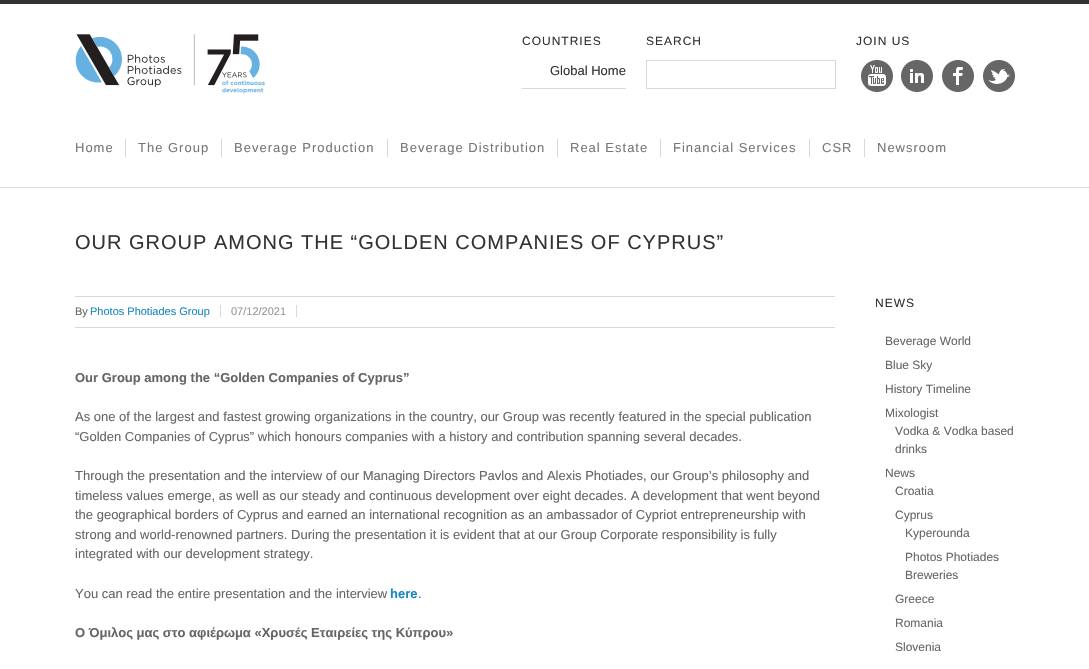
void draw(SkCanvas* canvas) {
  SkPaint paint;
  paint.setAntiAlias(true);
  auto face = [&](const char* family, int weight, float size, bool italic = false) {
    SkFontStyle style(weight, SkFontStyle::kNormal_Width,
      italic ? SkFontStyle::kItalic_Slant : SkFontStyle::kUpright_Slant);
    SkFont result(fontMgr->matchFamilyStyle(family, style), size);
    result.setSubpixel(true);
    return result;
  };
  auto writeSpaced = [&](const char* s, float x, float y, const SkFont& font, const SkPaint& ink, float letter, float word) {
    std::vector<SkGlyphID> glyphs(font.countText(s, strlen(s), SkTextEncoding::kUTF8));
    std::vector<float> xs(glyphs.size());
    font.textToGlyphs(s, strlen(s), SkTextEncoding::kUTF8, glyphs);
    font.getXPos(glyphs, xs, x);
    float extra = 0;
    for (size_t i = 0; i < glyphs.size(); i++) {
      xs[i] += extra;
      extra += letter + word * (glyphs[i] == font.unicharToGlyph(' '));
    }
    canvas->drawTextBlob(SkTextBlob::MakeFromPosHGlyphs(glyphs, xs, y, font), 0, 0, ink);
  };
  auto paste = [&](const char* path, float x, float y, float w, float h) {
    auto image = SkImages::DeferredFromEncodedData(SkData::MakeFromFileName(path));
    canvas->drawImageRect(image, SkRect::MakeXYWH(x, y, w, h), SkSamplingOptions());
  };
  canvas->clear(0xffffffff);
  paint.setColor(0xff333333);
  canvas->drawRect(SkRect::MakeXYWH(0, 0, 1089, 4), paint);
  paste("img/1.png", 75, 34, 190, 60);
  paint.setColor(0xffd9d9d9);
  canvas->drawRect(SkRect::MakeXYWH(522, 88, 104, 1), paint);
  paint.setStroke(true);
  paint.setStrokeWidth(1);
  canvas->drawRect(SkRect::MakeXYWH(646.5f, 60.5f, 189, 28), paint);
  paste("img/2.png", 861, 60, 32, 32);
  paste("img/3.png", 901, 60, 32, 32);
  paste("img/4.png", 942, 60, 32, 32);
  paste("img/5.png", 983, 60, 32, 32);
  paint.setStroke(false);
  {
    const struct { float x, y, w, h; SkColor color; } items[] = {
      {0, 187, 1089, 1, 0xffd9d9d9},
      {125, 139, 1, 18, 0xffd9d9d9},
      {221, 139, 1, 18, 0xffd9d9d9},
      {387, 139, 1, 18, 0xffd9d9d9},
      {557, 139, 1, 18, 0xffd9d9d9},
      {660, 139, 1, 18, 0xffd9d9d9},
      {809, 139, 1, 18, 0xffd9d9d9},
      {864, 139, 1, 18, 0xffd9d9d9},
      {75, 296, 760, 1, 0xffd9d9d9},
      {75, 327, 760, 1, 0xffd9d9d9},
      {220, 305, 1, 12, 0xffd9d9d9},
      {296, 305, 1, 12, 0xffd9d9d9},
    };
    for (auto [x, y, w, h, color] : items) {
      paint.setColor(color);
      canvas->drawRect(SkRect::MakeXYWH(x, y, w, h), paint);
    }
  }
  auto f0 = face("Liberation Sans", 400, 12);
  paint.setColor(0xff333333);
  writeSpaced("COUNTRIES", 522, 45, f0, paint, 1, 0);
  auto f1 = face("Liberation Sans", 400, 13);
  canvas->drawString("Global Home", 550, 75, f1, paint);
  writeSpaced("SEARCH", 646, 45, f0, paint, 1, 0);
  writeSpaced("JOIN US", 856, 45, f0, paint, 1, 0);
  paint.setColor(0xff777777);
  {
    const struct { const char* s; float x, y; } items[] = {
      {"Home", 75, 152},
      {"The Group", 138, 152},
      {"Beverage Production", 234, 152},
      {"Beverage Distribution", 400, 152},
      {"Real Estate", 570, 152},
      {"Financial Services", 673, 152},
      {"CSR", 822, 152},
      {"Newsroom", 877, 152},
    };
    for (auto [s, x, y] : items) {
      writeSpaced(s, x, y, f1, paint, 1, 0);
    }
  }
  auto f2 = face("Liberation Sans", 400, 20);
  paint.setColor(0xff333333);
  writeSpaced("OUR GROUP AMONG THE “GOLDEN COMPANIES OF CYPRUS”", 75, 249, f2, paint, 1, 0);
  auto f3 = face("Liberation Sans", 400, 11);
  paint.setColor(0xff666666);
  canvas->drawString("By", 75, 315, f3, paint);
  paint.setColor(0xff1a88c1);
  canvas->drawString("Photos Photiades Group", 90, 315, f3, paint);
  paint.setColor(0xff999999);
  canvas->drawString("07/12/2021", 231, 315, f3, paint);
  auto f4 = face("Liberation Sans", 700, 13);
  paint.setColor(0xff666666);
  canvas->drawString("Our Group among the “Golden Companies of Cyprus”", 75, 382, f4, paint);
  {
    const struct { const char* s; float x, y; } items[] = {
      {"As one of the largest and fastest growing organizations in the country, our Group was recently featured in the special publication", 75, 421},
      {"“Golden Companies of Cyprus” which honours companies with a history and contribution spanning several decades.", 75, 441},
      {"Through the presentation and the interview of our Managing Directors Pavlos and Alexis Photiades, our Group’s philosophy and", 75, 480},
      {"timeless values emerge, as well as our steady and continuous development over eight decades. A development that went beyond", 75, 500},
      {"the geographical borders of Cyprus and earned an international recognition as an ambassador of Cypriot entrepreneurship with", 75, 519},
      {"strong and world-renowned partners. During the presentation it is evident that at our Group Corporate responsibility is fully", 75, 539},
      {"integrated with our development strategy.", 75, 558},
      {"You can read the entire presentation and the interview", 75, 598},
    };
    for (auto [s, x, y] : items) {
      canvas->drawString(s, x, y, f1, paint);
    }
  }
  paint.setColor(0xff1a88c1);
  canvas->drawString("here", 390, 598, f4, paint);
  paint.setColor(0xff666666);
  canvas->drawString(".", 418, 598, f1, paint);
  canvas->drawString("Ο Όμιλος μας στο αφιέρωμα «Χρυσές Εταιρείες της Κύπρου»", 75, 637, f4, paint);
  paint.setColor(0xff333333);
  writeSpaced("NEWS", 875, 307, f0, paint, 1, 0);
  paint.setColor(0xff666666);
  {
    const struct { const char* s; float x, y; } items[] = {
      {"Beverage World", 885, 345},
      {"Blue Sky", 885, 369},
      {"History Timeline", 885, 393},
      {"Mixologist", 885, 417},
      {"Vodka & Vodka based", 895, 435},
      {"drinks", 895, 453},
      {"News", 885, 477},
      {"Croatia", 895, 495},
      {"Cyprus", 895, 519},
      {"Kyperounda", 905, 537},
      {"Photos Photiades", 905, 561},
      {"Breweries", 905, 579},
      {"Greece", 895, 603},
      {"Romania", 895, 627},
      {"Slovenia", 895, 651},
    };
    for (auto [s, x, y] : items) {
      canvas->drawString(s, x, y, f0, paint);
    }
  }
}
